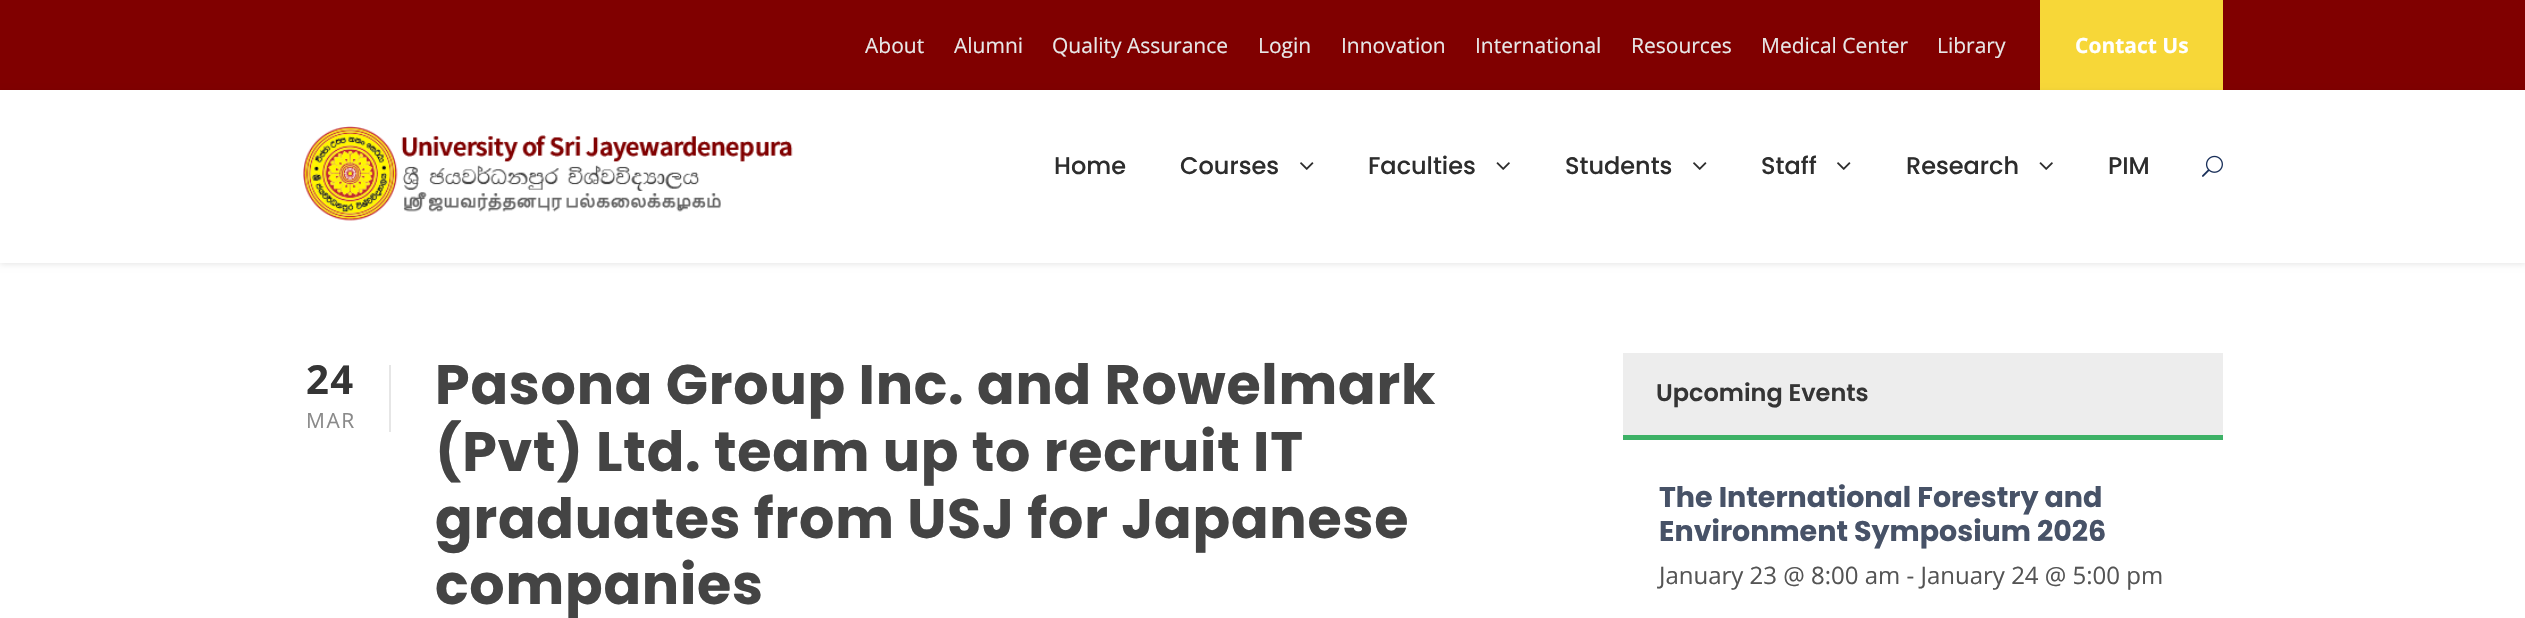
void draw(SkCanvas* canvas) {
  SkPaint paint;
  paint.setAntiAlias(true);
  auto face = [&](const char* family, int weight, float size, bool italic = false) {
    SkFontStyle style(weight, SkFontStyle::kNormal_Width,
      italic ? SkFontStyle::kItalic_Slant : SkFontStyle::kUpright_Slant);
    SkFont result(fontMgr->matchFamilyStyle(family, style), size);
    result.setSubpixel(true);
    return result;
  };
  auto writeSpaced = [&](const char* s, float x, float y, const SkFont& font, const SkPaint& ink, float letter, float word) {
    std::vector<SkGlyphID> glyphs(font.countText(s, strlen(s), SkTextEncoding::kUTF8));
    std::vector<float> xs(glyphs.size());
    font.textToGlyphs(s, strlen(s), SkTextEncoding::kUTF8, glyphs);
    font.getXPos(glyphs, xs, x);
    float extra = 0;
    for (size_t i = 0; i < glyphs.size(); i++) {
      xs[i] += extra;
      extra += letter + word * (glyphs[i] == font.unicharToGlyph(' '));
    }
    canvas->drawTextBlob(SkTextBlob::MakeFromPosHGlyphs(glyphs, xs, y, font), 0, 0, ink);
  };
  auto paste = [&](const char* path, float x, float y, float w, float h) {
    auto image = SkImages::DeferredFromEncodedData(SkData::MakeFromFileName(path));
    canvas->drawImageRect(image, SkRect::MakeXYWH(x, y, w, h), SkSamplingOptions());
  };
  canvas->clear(0xffffffff);
  paint.setColor(0xff800000);
  canvas->drawRect(SkRect::MakeXYWH(0, 0, 2525, 90), paint);
  paint.setColor(0xfff7d738);
  canvas->drawRect(SkRect::MakeXYWH(2040, 0, 183, 90), paint);
  paint.setColor(0x1a000000);
  paint.setMaskFilter(SkMaskFilter::MakeBlur(kNormal_SkBlurStyle, 3));
  canvas->drawRect(SkRect::MakeXYWH(0, 92, 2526, 172), paint);
  paint.setMaskFilter(nullptr);
  paint.setColor(0xffffffff);
  canvas->drawRect(SkRect::MakeXYWH(0, 90, 2525, 173), paint);
  paste("img/1.png", 303, 126, 490, 95);
  paste("img/2.png", 1300, 162, 14, 8);
  paste("img/3.png", 1496, 162, 14, 8);
  paste("img/2.png", 1693, 162, 14, 8);
  paste("img/2.png", 1837, 162, 14, 8);
  paste("img/3.png", 2039, 162, 14, 8);
  paste("img/4.png", 2202, 155, 21, 22);
  {
    const struct { float x, y, w, h; SkColor color; } items[] = {
      {389, 365, 2, 67, 0xffe6e6e6},
      {1623, 353, 600, 82, 0xffededed},
      {1623, 435, 600, 5, 0xff3db166},
    };
    for (auto [x, y, w, h, color] : items) {
      paint.setColor(color);
      canvas->drawRect(SkRect::MakeXYWH(x, y, w, h), paint);
    }
  }
  auto f0 = face("Open Sans", 400, 21);
  paint.setColor(0xffe8e8e8);
  {
    const struct { const char* s; float x, y; } items[] = {
      {"About", 865, 53},
      {"Alumni", 954, 53},
      {"Quality Assurance", 1052, 53},
      {"Login", 1258, 53},
      {"Innovation", 1341, 53},
      {"International", 1475, 53},
      {"Resources", 1631, 53},
      {"Medical Center", 1761, 53},
      {"Library", 1937, 53},
    };
    for (auto [s, x, y] : items) {
      canvas->drawString(s, x, y, f0, paint);
    }
  }
  auto f1 = face("Open Sans", 700, 21);
  paint.setColor(0xffffffff);
  canvas->drawString("Contact Us", 2075, 53, f1, paint);
  auto f2 = face("Poppins", 500, 24);
  paint.setColor(0xff2d2d2d);
  {
    const struct { const char* s; float x, y; } items[] = {
      {"Home", 1054, 174},
      {"Courses", 1180, 174},
      {"Faculties", 1368, 174},
      {"Students", 1565, 174},
      {"Staff", 1761, 174},
      {"Research", 1906, 174},
      {"PIM", 2108, 174},
    };
    for (auto [s, x, y] : items) {
      canvas->drawString(s, x, y, f2, paint);
    }
  }
  auto f3 = face("Open Sans", 700, 40);
  paint.setColor(0xff353535);
  writeSpaced("24", 306, 394, f3, paint, 1.5f, 0);
  paint.setColor(0xff8a8a8a);
  writeSpaced("MAR", 306, 428, f0, paint, 1.5f, 0);
  auto f4 = face("Poppins", 700, 55.5f);
  paint.setColor(0xff444444);
  {
    const struct { const char* s; float x, y; } items[] = {
      {"Pasona Group Inc. and Rowelmark", 435, 404},
      {"(Pvt) Ltd. team up to recruit IT", 435, 471},
      {"graduates from USJ for Japanese", 435, 538},
      {"companies", 435, 604},
    };
    for (auto [s, x, y] : items) {
      writeSpaced(s, x, y, f4, paint, 0.75f, 0);
    }
  }
  auto f5 = face("Poppins", 600, 24);
  paint.setColor(0xff353535);
  canvas->drawString("Upcoming Events", 1656, 401, f5, paint);
  auto f6 = face("Poppins", 700, 28.5f);
  paint.setColor(0xff475267);
  canvas->drawString("The International Forestry and", 1659, 507, f6, paint);
  canvas->drawString("Environment Symposium 2026", 1659, 541, f6, paint);
  auto f7 = face("Open Sans", 400, 24);
  paint.setColor(0xff545454);
  canvas->drawString("January 23 @ 8:00 am - January 24 @ 5:00 pm", 1659, 584, f7, paint);
}
